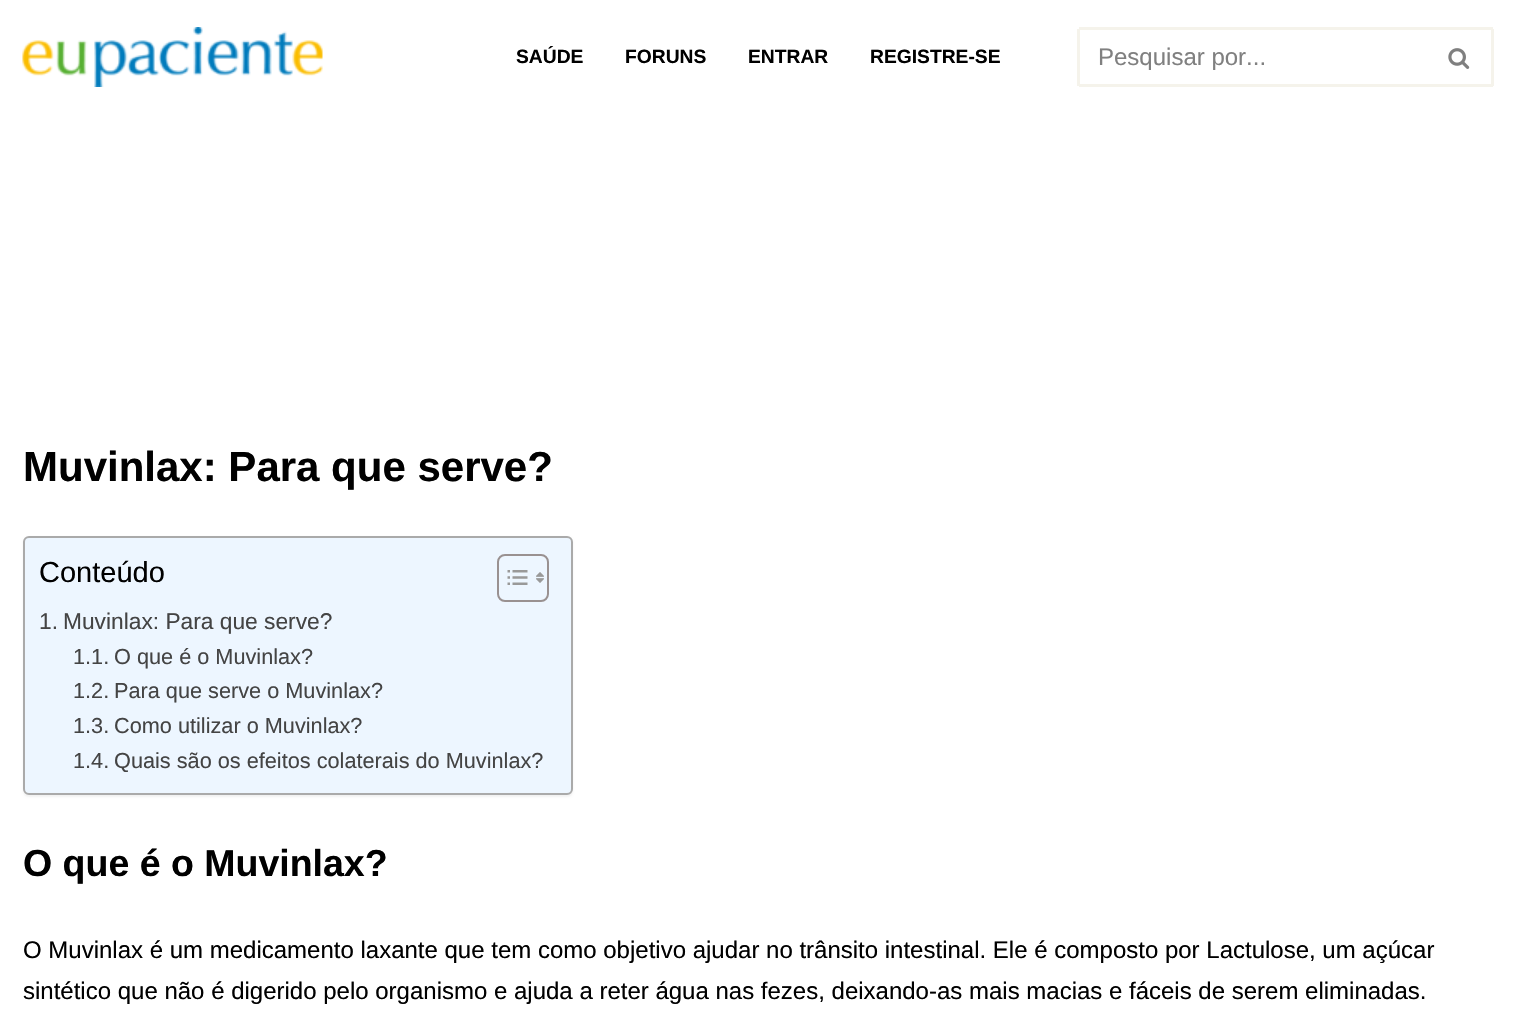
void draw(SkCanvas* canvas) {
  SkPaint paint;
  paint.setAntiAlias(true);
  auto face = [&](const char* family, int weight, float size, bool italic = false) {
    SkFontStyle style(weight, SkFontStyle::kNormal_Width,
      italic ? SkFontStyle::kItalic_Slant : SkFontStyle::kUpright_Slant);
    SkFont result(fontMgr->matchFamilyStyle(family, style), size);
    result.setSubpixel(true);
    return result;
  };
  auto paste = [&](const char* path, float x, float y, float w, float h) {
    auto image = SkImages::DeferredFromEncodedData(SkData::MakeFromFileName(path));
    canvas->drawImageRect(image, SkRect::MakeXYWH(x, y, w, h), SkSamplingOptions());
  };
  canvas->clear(0xffffffff);
  paste("img/1.png", 22, 27, 301, 60);
  {
    const struct { float x, y, w, h; SkColor color; } items[] = {
      {1079, 27, 414, 3, 0xfff5f3eb},
      {1079, 84, 348, 3, 0xfff5f3eb},
      {1077, 29, 3, 57, 0xfff5f3eb},
      {1491, 29, 3, 57, 0xfff5f3eb},
      {1427, 84, 66, 3, 0xfff5f3eb},
    };
    for (auto [x, y, w, h, color] : items) {
      paint.setColor(color);
      canvas->drawRect(SkRect::MakeXYWH(x, y, w, h), paint);
    }
  }
  paste("img/2.png", 1448, 48, 22, 21);
  paint.setColor(0x0d000000);
  paint.setMaskFilter(SkMaskFilter::MakeBlur(kNormal_SkBlurStyle, 1));
  canvas->drawRoundRect(SkRect::MakeXYWH(23, 537, 550, 260), 6, 6, paint);
  paint.setMaskFilter(nullptr);
  paint.setColor(0xffedf6ff);
  canvas->drawRoundRect(SkRect::MakeXYWH(24, 537, 548, 257), 5, 5, paint);
  paint.setStroke(true);
  paint.setStrokeWidth(2);
  paint.setColor(0xffaaaaaa);
  canvas->drawRoundRect(SkRect::MakeXYWH(24, 537, 548, 257), 5, 5, paint);
  paint.setColor(0xff999191);
  canvas->drawRoundRect(SkRect::MakeXYWH(498, 555, 50, 46), 7, 7, paint);
  paste("img/3.png", 507, 570, 21, 15);
  paste("img/4.png", 536, 572, 8, 11);
  auto f0 = face("Liberation Sans", 700, 19.25f);
  paint.setStroke(false);
  paint.setColor(0xff000000);
  {
    const struct { const char* s; float x, y; } items[] = {
      {"SAÚDE", 516, 63},
      {"FORUNS", 625, 63},
      {"ENTRAR", 748, 63},
      {"REGISTRE-SE", 870, 63},
    };
    for (auto [s, x, y] : items) {
      canvas->drawString(s, x, y, f0, paint);
    }
  }
  auto f1 = face("Liberation Sans", 400, 24);
  paint.setColor(0xff808080);
  canvas->drawString("Pesquisar por...", 1098, 65, f1, paint);
  auto f2 = face("Liberation Sans", 700, 42);
  paint.setColor(0xff000000);
  canvas->drawString("Muvinlax: Para que serve?", 23, 481, f2, paint);
  auto f3 = face("Liberation Sans", 400, 29);
  canvas->drawString("Conteúdo", 39, 582, f3, paint);
  auto f4 = face("Liberation Sans", 400, 22.75f);
  paint.setColor(0xff444444);
  canvas->drawString("1.", 39, 629, f4, paint);
  canvas->drawString("Muvinlax: Para que serve?", 63, 629, f4, paint);
  auto f5 = face("Liberation Sans", 400, 21.7f);
  {
    const struct { const char* s; float x, y; } items[] = {
      {"1.1.", 73, 664},
      {"O que é o Muvinlax?", 114, 664},
      {"1.2.", 73, 698},
      {"Para que serve o Muvinlax?", 114, 698},
      {"1.3.", 73, 733},
      {"Como utilizar o Muvinlax?", 114, 733},
      {"1.4.", 73, 768},
      {"Quais são os efeitos colaterais do Muvinlax?", 114, 768},
    };
    for (auto [s, x, y] : items) {
      canvas->drawString(s, x, y, f5, paint);
    }
  }
  auto f6 = face("Liberation Sans", 700, 37.5f);
  paint.setColor(0xff000000);
  canvas->drawString("O que é o Muvinlax?", 23, 876, f6, paint);
  canvas->drawString("O Muvinlax é um medicamento laxante que tem como objetivo ajudar no trânsito intestinal. Ele é composto por Lactulose, um açúcar", 23, 958, f1, paint);
  canvas->drawString("sintético que não é digerido pelo organismo e ajuda a reter água nas fezes, deixando-as mais macias e fáceis de serem eliminadas.", 23, 999, f1, paint);
}
